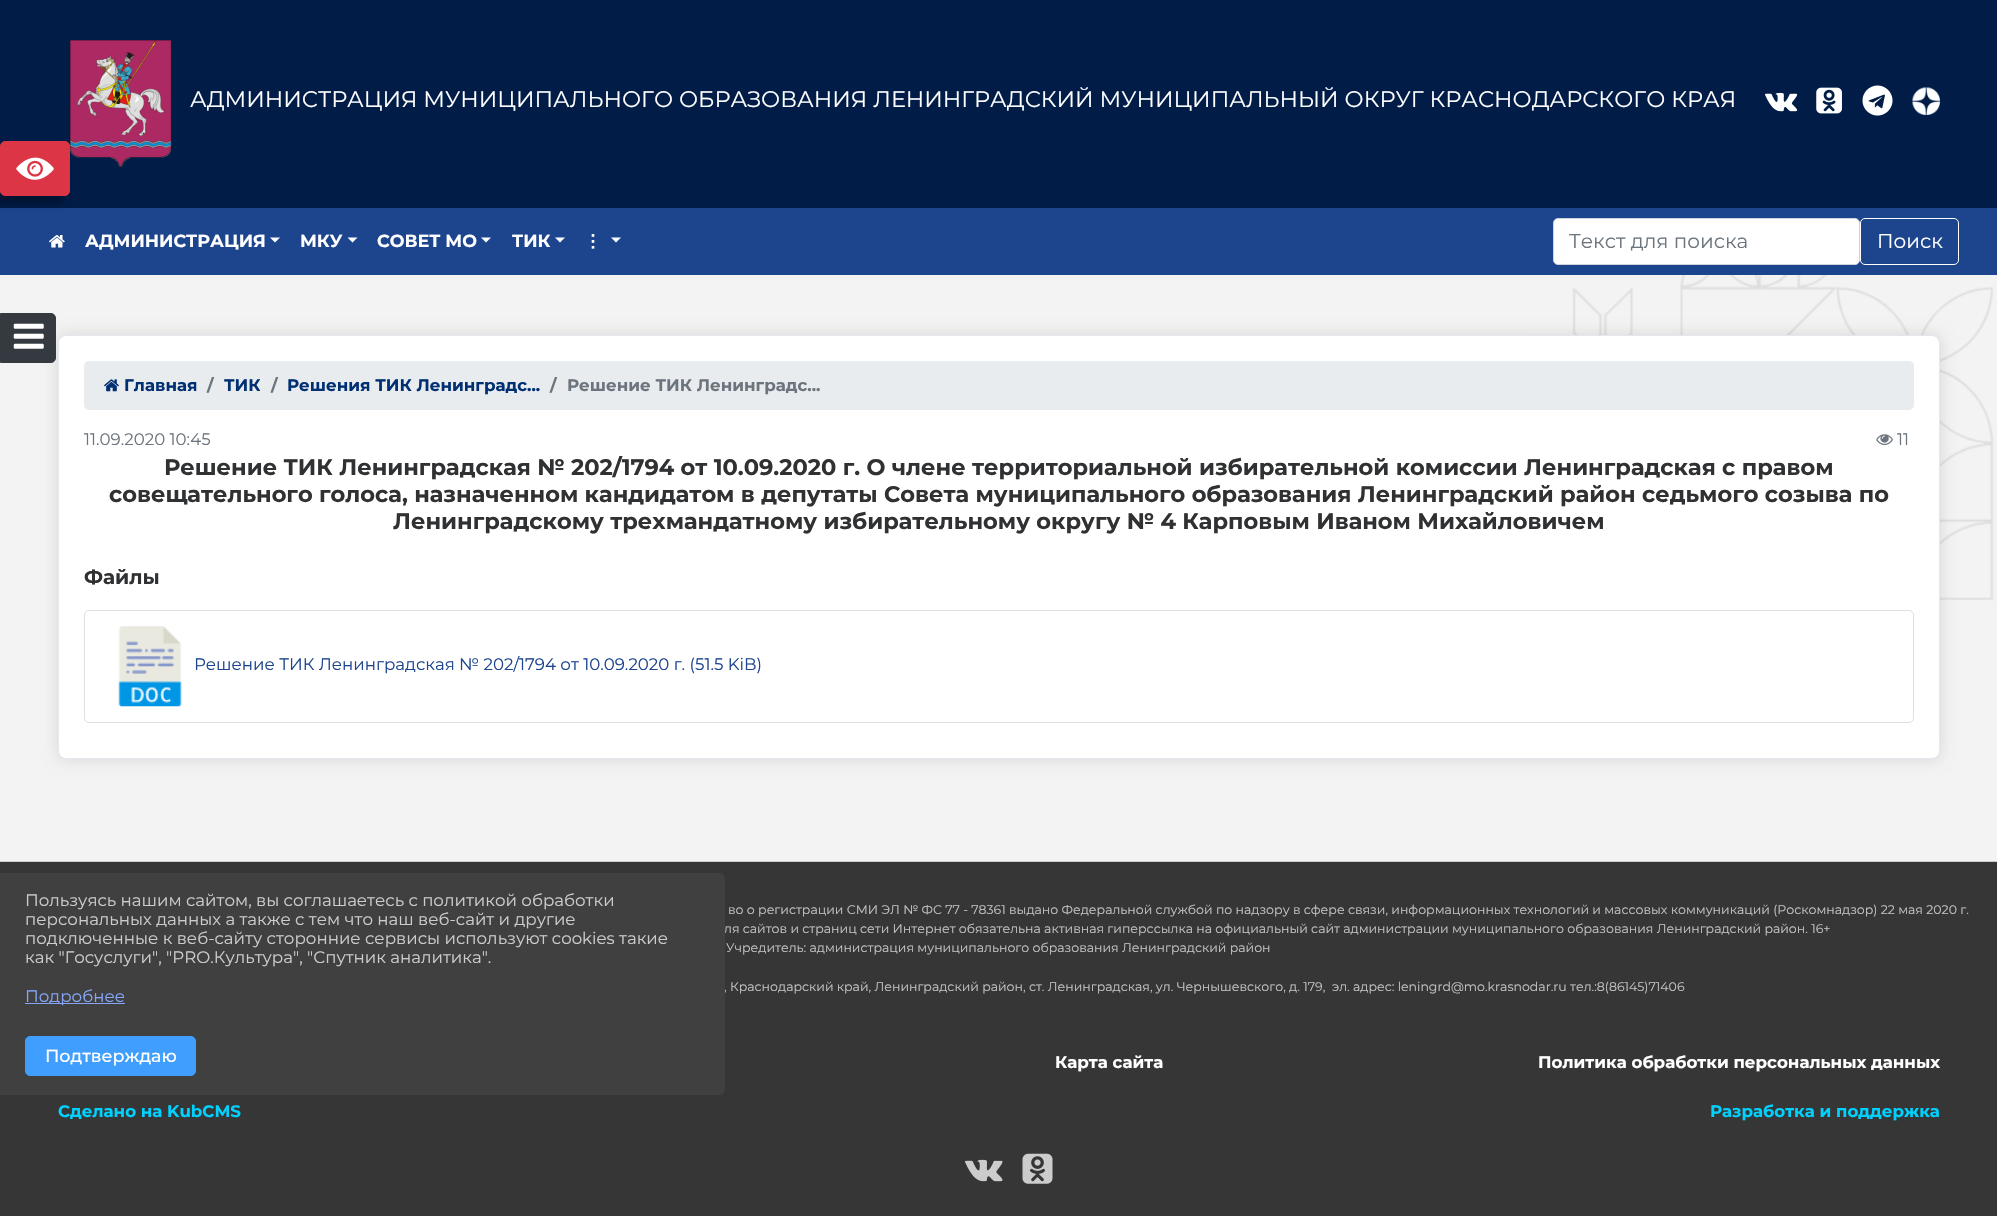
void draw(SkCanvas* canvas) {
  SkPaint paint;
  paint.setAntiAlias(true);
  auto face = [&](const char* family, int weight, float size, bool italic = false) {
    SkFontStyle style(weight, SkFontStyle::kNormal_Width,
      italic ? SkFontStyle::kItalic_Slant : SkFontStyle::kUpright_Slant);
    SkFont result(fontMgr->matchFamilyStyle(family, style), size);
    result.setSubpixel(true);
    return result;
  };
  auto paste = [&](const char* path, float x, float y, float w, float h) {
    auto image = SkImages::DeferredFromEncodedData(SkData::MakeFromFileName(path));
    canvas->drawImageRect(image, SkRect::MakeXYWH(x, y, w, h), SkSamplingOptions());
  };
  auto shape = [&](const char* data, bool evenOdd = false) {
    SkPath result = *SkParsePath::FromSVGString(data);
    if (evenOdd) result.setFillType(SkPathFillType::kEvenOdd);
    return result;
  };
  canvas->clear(0xffffffff);
  paste("img/1.png", 0, 275, 1997, 586);
  paint.setColor(0xff001c47);
  canvas->drawRect(SkRect::MakeXYWH(0, 0, 1997, 208), paint);
  paste("img/3.png", 70, 40, 102, 128);
  paint.setColor(0xff1d458d);
  canvas->drawRect(SkRect::MakeXYWH(0, 208, 1997, 67), paint);
  paint.setColor(0x59000000);
  paint.setMaskFilter(SkMaskFilter::MakeBlur(kNormal_SkBlurStyle, 5));
  canvas->drawRoundRect(SkRect::MakeXYWH(-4, 150, 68, 53), 4, 4, paint);
  paint.setMaskFilter(nullptr);
  paint.setColor(0xffdc3545);
  canvas->drawRoundRect(SkRect::MakeXYWH(0.5f, 141.5f, 69, 54), 4.5f, 4.5f, paint);
  paint.setStroke(true);
  paint.setStrokeWidth(1);
  canvas->drawRoundRect(SkRect::MakeXYWH(0.5f, 141.5f, 69, 54), 4.5f, 4.5f, paint);
  paste("img/2.png", 16, 157, 38, 23);
  paste("img/4.png", 1765, 92, 33, 20);
  paste("img/5.png", 1816, 87, 26, 27);
  paste("img/6.png", 1862, 85, 31, 31);
  paste("img/7.png", 1912, 87, 28, 28);
  paste("img/8.png", 49, 235, 16, 13);
  paint.setStroke(false);
  paint.setColor(0xffffffff);
  canvas->drawPath(shape("M270 237.5H280L275 242.5Z"), paint);
  canvas->drawPath(shape("M347.5 237.5H357.5L352.5 242.5Z"), paint);
  canvas->drawPath(shape("M481 237.5H491L486 242.5Z"), paint);
  canvas->drawPath(shape("M555 237.5H565L560 242.5Z"), paint);
  canvas->drawPath(shape("M611 237.5H621L616 242.5Z"), paint);
  canvas->drawRoundRect(SkRect::MakeXYWH(1553.5f, 218.5f, 306, 46), 4.5f, 4.5f, paint);
  paint.setStroke(true);
  paint.setColor(0xffced4da);
  canvas->drawRoundRect(SkRect::MakeXYWH(1553.5f, 218.5f, 306, 46), 4.5f, 4.5f, paint);
  paint.setColor(0xffffffff);
  canvas->drawRoundRect(SkRect::MakeXYWH(1860.5f, 218.5f, 98, 46), 4.5f, 4.5f, paint);
  paint.setStroke(false);
  paint.setColor(0x1f000000);
  paint.setMaskFilter(SkMaskFilter::MakeBlur(kNormal_SkBlurStyle, 7.5f));
  canvas->drawRoundRect(SkRect::MakeXYWH(58, 335, 1882, 424), 8, 8, paint);
  paint.setMaskFilter(nullptr);
  paint.setColor(0xffffffff);
  canvas->drawRoundRect(SkRect::MakeXYWH(58.5f, 335.5f, 1881, 423), 7.5f, 7.5f, paint);
  paint.setStroke(true);
  paint.setColor(0xffe4e7ed);
  canvas->drawRoundRect(SkRect::MakeXYWH(58.5f, 335.5f, 1881, 423), 7.5f, 7.5f, paint);
  paint.setStroke(false);
  paint.setColor(0xffe9ecef);
  canvas->drawRoundRect(SkRect::MakeXYWH(84, 361, 1830, 49), 5, 5, paint);
  paste("img/9.png", 104, 379, 15, 13);
  paste("img/10.png", 1876, 434, 17, 11);
  paint.setStroke(true);
  paint.setColor(0xffdfdfdf);
  canvas->drawRoundRect(SkRect::MakeXYWH(84.5f, 610.5f, 1829, 112), 4.5f, 4.5f, paint);
  paste("img/11.png", 118, 626, 64, 81);
  paint.setStroke(false);
  paint.setColor(0xff373636);
  canvas->drawRect(SkRect::MakeXYWH(0, 862, 1997, 354), paint);
  paint.setColor(0xffcccccc);
  canvas->drawRect(SkRect::MakeXYWH(0, 861, 1997, 1), paint);
  paste("img/12.png", 965, 1159, 38, 23);
  paste("img/13.png", 1022, 1153, 31, 31);
  paint.setColor(0xff343a40);
  canvas->drawPath(shape("M.5 313.5H51C53.5 313.5 55.5 315.5 55.5 318V358C55.5 360.5 53.5 362.5 51 362.5H.5Z"), paint);
  paint.setStroke(true);
  canvas->drawPath(shape("M.5 313.5H51C53.5 313.5 55.5 315.5 55.5 318V358C55.5 360.5 53.5 362.5 51 362.5H.5Z"), paint);
  paste("img/14.png", 13, 323, 31, 26);
  auto f0 = face("Montserrat", 400, 22.5f);
  paint.setStroke(false);
  paint.setColor(0xffffffff);
  canvas->drawString("АДМИНИСТРАЦИЯ МУНИЦИПАЛЬНОГО ОБРАЗОВАНИЯ ЛЕНИНГРАДСКИЙ МУНИЦИПАЛЬНЫЙ ОКРУГ КРАСНОДАРСКОГО КРАЯ", 190, 107, f0, paint);
  auto f1 = face("Montserrat", 700, 17.5f);
  {
    const struct { const char* s; float x, y; } items[] = {
      {"АДМИНИСТРАЦИЯ", 85, 247},
      {"МКУ", 300, 247},
      {"СОВЕТ МО", 377, 247},
      {"ТИК", 512, 247},
    };
    for (auto [s, x, y] : items) {
      canvas->drawString(s, x, y, f1, paint);
    }
  }
  auto f2 = face("DejaVu Sans", 700, 17.5f);
  canvas->drawString("⋮", 584, 247, f2, paint);
  auto f3 = face("Montserrat", 400, 20);
  paint.setColor(0xff6c757d);
  canvas->drawString("Текст для поиска", 1569, 248, f3, paint);
  paint.setColor(0xffffffff);
  canvas->drawString("Поиск", 1877, 248, f3, paint);
  auto f4 = face("Montserrat", 700, 16.65f);
  paint.setColor(0xff002f72);
  canvas->drawString("Главная", 124, 391, f4, paint);
  paint.setColor(0xff6c757d);
  canvas->drawString("/", 207, 391, f4, paint);
  paint.setColor(0xff002f72);
  canvas->drawString("ТИК", 224, 391, f4, paint);
  paint.setColor(0xff6c757d);
  canvas->drawString("/", 271, 391, f4, paint);
  paint.setColor(0xff002f72);
  canvas->drawString("Решения ТИК Ленинградс...", 287, 391, f4, paint);
  paint.setColor(0xff6c757d);
  canvas->drawString("/", 550, 391, f4, paint);
  canvas->drawString("Решение ТИК Ленинградс...", 567, 391, f4, paint);
  auto f5 = face("Montserrat", 400, 16.65f);
  canvas->drawString("11.09.2020 10:45", 84, 445, f5, paint);
  canvas->drawString("11", 1897, 445, f5, paint);
  auto f6 = face("Montserrat", 700, 22.5f);
  paint.setColor(0xff303133);
  {
    const struct { const char* s; float x, y; } items[] = {
      {"Решение ТИК Ленинградская № 202/1794 от 10.09.2020 г. О члене территориальной избирательной комиссии Ленинградская с правом", 164, 475},
      {"совещательного голоса, назначенном кандидатом в депутаты Совета муниципального образования Ленинградский район седьмого созыва по", 109, 502},
      {"Ленинградскому трехмандатному избирательному округу № 4 Карповым Иваном Михайловичем", 393, 529},
    };
    for (auto [s, x, y] : items) {
      canvas->drawString(s, x, y, f6, paint);
    }
  }
  auto f7 = face("Montserrat", 700, 20);
  canvas->drawString("Файлы", 84, 584, f7, paint);
  paint.setColor(0xff1d458d);
  canvas->drawString("Решение ТИК Ленинградская № 202/1794 от 10.09.2020 г. (51.5 KiB)", 194, 670, f5, paint);
  auto f8 = face("Montserrat", 400, 12.5f);
  paint.setColor(0xffc2c2c2);
  {
    const struct { const char* s; float x, y; } items[] = {
      {"во о регистрации СМИ ЭЛ № ФС 77 - 78361 выдано Федеральной службой по надзору в сфере связи, информационных технологий и массовых коммуникаций (Роскомнадзор) 22 мая 2020 г.", 728, 914},
      {"ля сайтов и страниц сети Интернет обязательна активная гиперссылка на официальный сайт администрации муниципального образования Ленинградский район. 16+", 724, 933},
      {"Учредитель: администрация муниципального образования Ленинградский район", 726, 952},
      {", Краснодарский край, Ленинградский район, ст. Ленинградская, ул. Чернышевского, д. 179,", 724, 991},
      {"эл. адрес: leningrd@mo.krasnodar.ru тел.:8(86145)71406", 1332, 991},
    };
    for (auto [s, x, y] : items) {
      canvas->drawString(s, x, y, f8, paint);
    }
  }
  paint.setColor(0xffffffff);
  canvas->drawString("Карта сайта", 1055, 1068, f4, paint);
  canvas->drawString("Политика обработки персональных данных", 1538, 1068, f4, paint);
  paint.setColor(0xff00d2ff);
  canvas->drawString("Сделано на KubCMS", 58, 1117, f4, paint);
  canvas->drawString("Разработка и поддержка", 1710, 1117, f4, paint);
  paint.setColor(0xff404040);
  canvas->drawPath(shape("M0 873H719C722.5 873 725 875.5 725 879V1089C725 1092.5 722.5 1095 719 1095H0Z"), paint);
  paint.setColor(0xffcccccc);
  {
    const struct { const char* s; float x, y; } items[] = {
      {"Пользуясь нашим сайтом, вы соглашаетесь с политикой обработки", 25, 906},
      {"персональных данных а также с тем что наш веб-сайт и другие", 25, 925},
      {"подключенные к веб-сайту сторонние сервисы используют cookies такие", 25, 944},
      {"как \"Госуслуги\", \"PRO.Культура\", \"Спутник аналитика\".", 25, 963},
    };
    for (auto [s, x, y] : items) {
      canvas->drawString(s, x, y, f5, paint);
    }
  }
  paint.setColor(0xff85a6f9);
  canvas->drawRect(SkRect::MakeXYWH(25, 1003, 100, 1), paint);
  canvas->drawString("Подробнее", 25, 1002, f5, paint);
  paint.setColor(0xff409eff);
  canvas->drawRoundRect(SkRect::MakeXYWH(25.5f, 1036.5f, 170, 39), 4.5f, 4.5f, paint);
  paint.setStroke(true);
  canvas->drawRoundRect(SkRect::MakeXYWH(25.5f, 1036.5f, 170, 39), 4.5f, 4.5f, paint);
  auto f9 = face("Montserrat", 500, 17.5f);
  paint.setStroke(false);
  paint.setColor(0xffffffff);
  canvas->drawString("Подтверждаю", 45, 1062, f9, paint);
}
